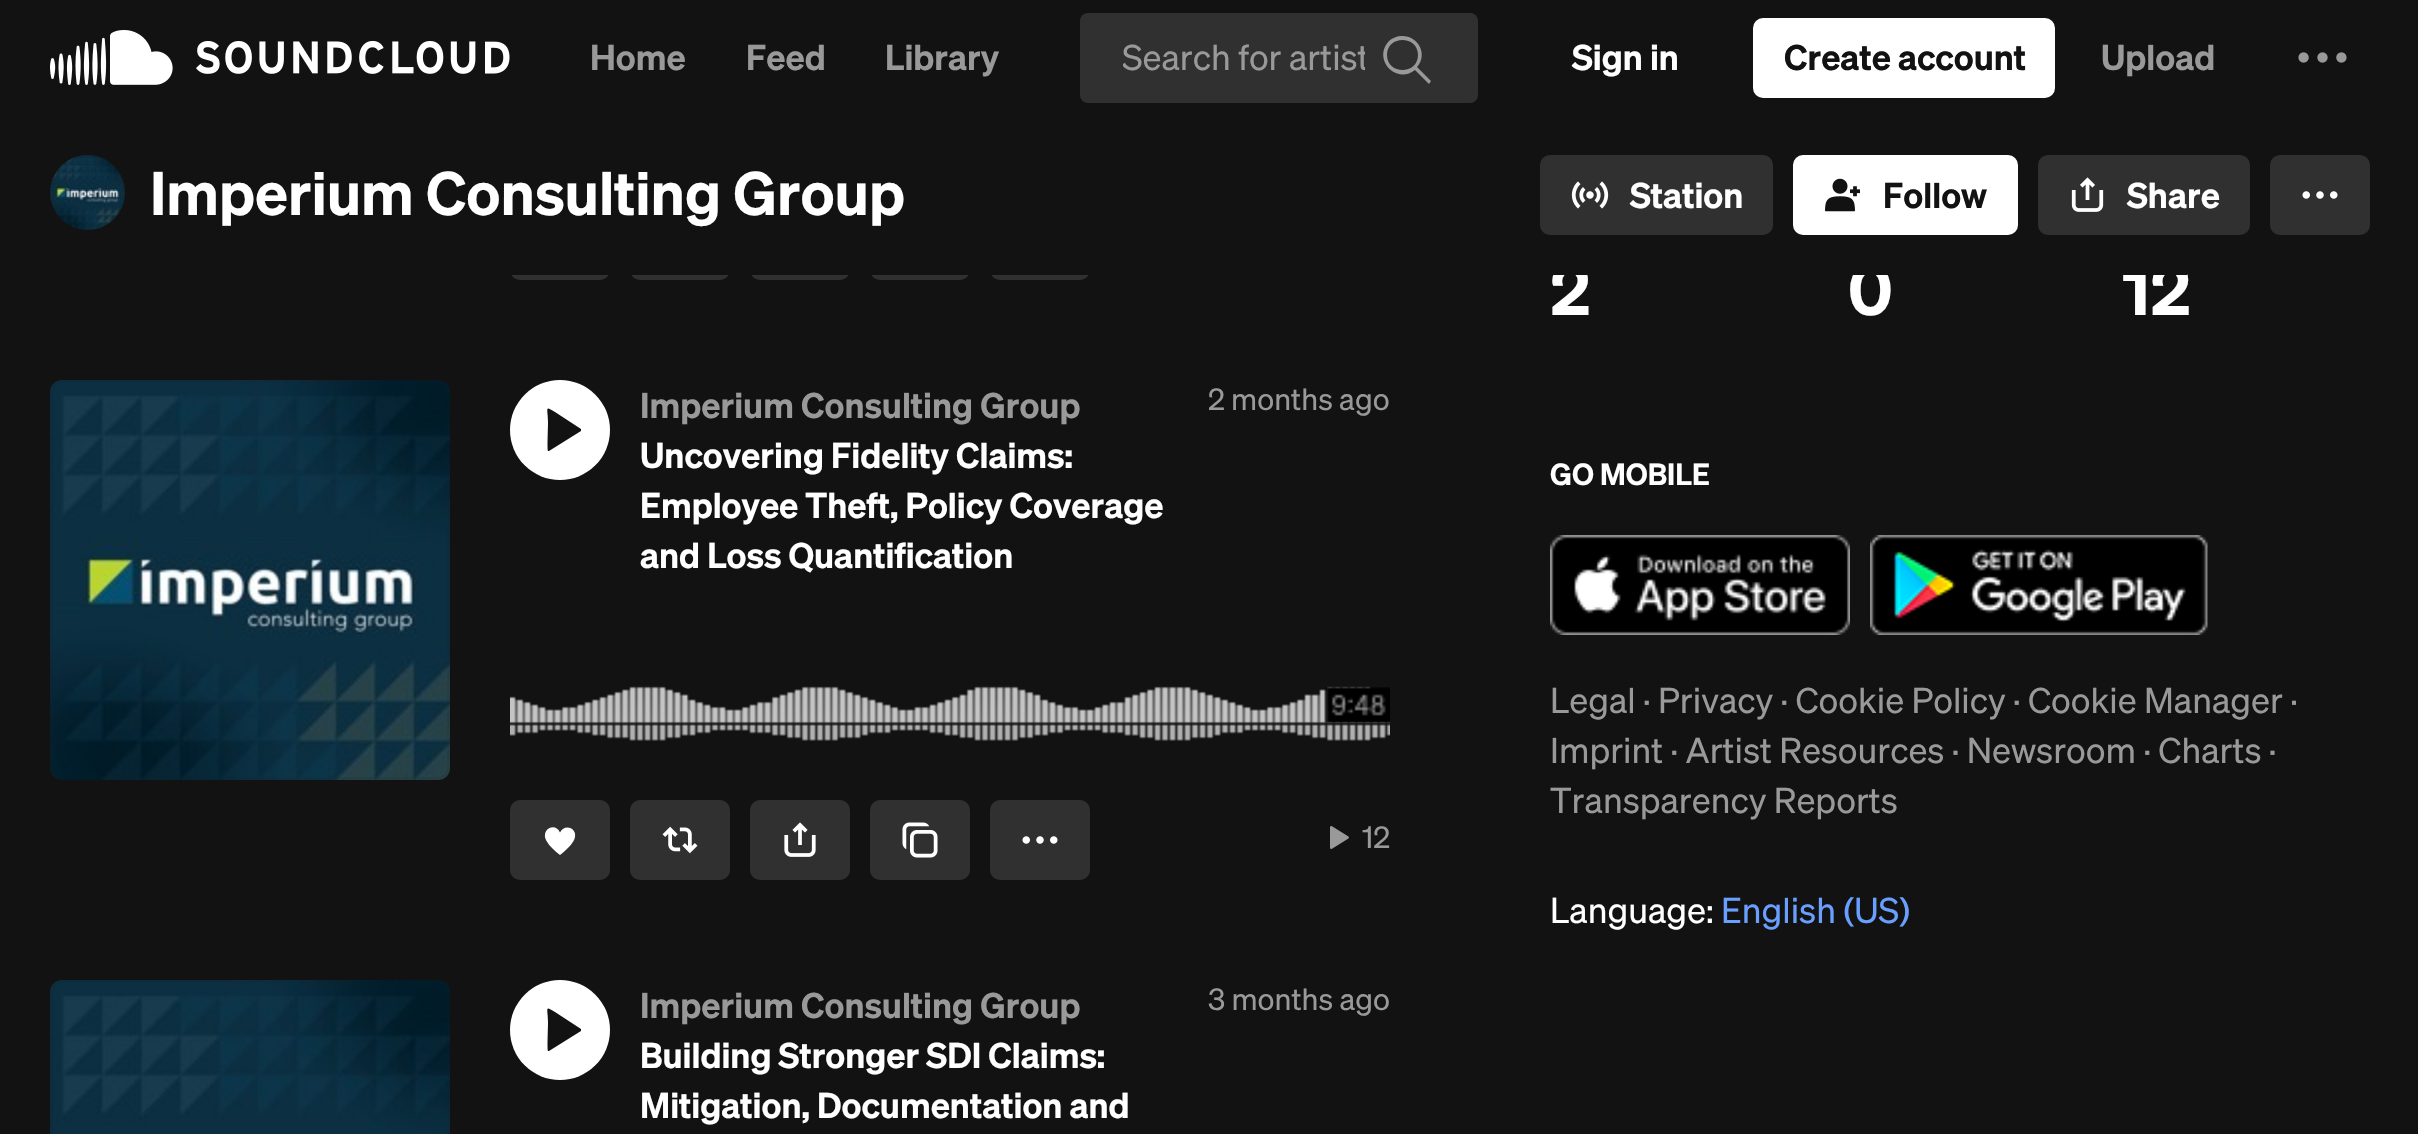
void draw(SkCanvas* canvas) {
  SkPaint paint;
  paint.setAntiAlias(true);
  auto face = [&](const char* family, int weight, float size, bool italic = false) {
    SkFontStyle style(weight, SkFontStyle::kNormal_Width,
      italic ? SkFontStyle::kItalic_Slant : SkFontStyle::kUpright_Slant);
    SkFont result(fontMgr->matchFamilyStyle(family, style), size);
    result.setSubpixel(true);
    return result;
  };
  auto paste = [&](const char* path, float x, float y, float w, float h) {
    auto image = SkImages::DeferredFromEncodedData(SkData::MakeFromFileName(path));
    canvas->drawImageRect(image, SkRect::MakeXYWH(x, y, w, h), SkSamplingOptions());
  };
  auto shape = [&](const char* data, bool evenOdd = false) {
    SkPath result = *SkParsePath::FromSVGString(data);
    if (evenOdd) result.setFillType(SkPathFillType::kEvenOdd);
    return result;
  };
  canvas->clear(0xff121212);
  paste("img/1.png", 50, 30, 460, 55);
  paint.setColor(0xff303030);
  canvas->drawRoundRect(SkRect::MakeXYWH(1080, 13, 398, 90), 8, 8, paint);
  paint.setColor(0xff999999);
  canvas->drawPath(shape("M1402 36C1397 36 1392 38 1389 41C1372 59 1396 85 1415 70L1429 84L1431 81L1417 67C1428 55 1419 36 1402 36ZM1387 55C1387 35 1418 35 1418 55C1418 75 1387 75 1387 55Z"), paint);
  paint.setColor(0xffffffff);
  canvas->drawRoundRect(SkRect::MakeXYWH(1753, 18, 302, 80), 10, 10, paint);
  paste("img/2.png", 2298, 52, 49, 11);
  paste("img/3.png", 50, 155, 75, 75);
  paint.setStroke(true);
  paint.setStrokeWidth(3);
  paint.setColor(0x1a121212);
  canvas->drawCircle(87.5f, 192.5f, 36, paint);
  paint.setStroke(false);
  paint.setColor(0xff303030);
  canvas->drawRoundRect(SkRect::MakeXYWH(2270, 155, 100, 80), 10, 10, paint);
  paste("img/7.png", 2302, 191, 36, 8);
  canvas->drawRoundRect(SkRect::MakeXYWH(510, 200, 100, 80), 10, 10, paint);
  canvas->drawRoundRect(SkRect::MakeXYWH(630, 200, 100, 80), 10, 10, paint);
  canvas->drawRoundRect(SkRect::MakeXYWH(750, 200, 100, 80), 10, 10, paint);
  canvas->drawRoundRect(SkRect::MakeXYWH(870, 200, 100, 80), 10, 10, paint);
  canvas->drawRoundRect(SkRect::MakeXYWH(990, 200, 100, 80), 10, 10, paint);
  paste("img/8.png", 50, 380, 400, 400);
  paint.setStroke(true);
  paint.setColor(0x1a121212);
  canvas->drawRoundRect(SkRect::MakeXYWH(51.5f, 381.5f, 397, 397), 11.5f, 11.5f, paint);
  paint.setStroke(false);
  paint.setColor(0xffffffff);
  canvas->drawCircle(560, 430, 50, paint);
  paint.setColor(0xff121212);
  canvas->drawPath(shape("M581 429V431L549 451H548C547 450 548 427 548 423C548 408 544 405 555 412Z", true), paint);
  paste("img/9.png", 510, 686, 880, 55);
  paste("img/10.png", 1324, 687, 66, 37);
  paint.setColor(0xff303030);
  canvas->drawRoundRect(SkRect::MakeXYWH(510, 800, 100, 80), 10, 10, paint);
  paint.setColor(0xffffffff);
  canvas->drawPath(shape("M560 832.5C564.5 823 578.5 828.5 574.5 839C572 845 565 851 560 855C555 851 549.5 846.5 546.5 841C540 830 555 821.5 560 832.5Z"), paint);
  paint.setColor(0xff303030);
  canvas->drawRoundRect(SkRect::MakeXYWH(630, 800, 100, 80), 10, 10, paint);
  paste("img/11.png", 662, 826, 36, 28);
  canvas->drawRoundRect(SkRect::MakeXYWH(750, 800, 100, 80), 10, 10, paint);
  paste("img/12.png", 784, 822, 32, 35);
  canvas->drawRoundRect(SkRect::MakeXYWH(870, 800, 100, 80), 10, 10, paint);
  paste("img/13.png", 902, 822, 36, 36);
  canvas->drawRoundRect(SkRect::MakeXYWH(990, 800, 100, 80), 10, 10, paint);
  paste("img/7.png", 1022, 836, 36, 8);
  paste("img/14.png", 1330, 826, 19, 23);
  paste("img/15.png", 50, 980, 400, 154);
  paint.setStroke(true);
  paint.setColor(0x1a121212);
  canvas->drawRoundRect(SkRect::MakeXYWH(51.5f, 981.5f, 397, 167), 11.5f, 11.5f, paint);
  paint.setStroke(false);
  paint.setColor(0xffffffff);
  canvas->drawCircle(560, 1030, 50, paint);
  paint.setColor(0xff121212);
  canvas->drawPath(shape("M581 1029V1031L549 1051H548C547 1050 548 1027 548 1023C548 1008 544 1005 555 1012Z", true), paint);
  paste("img/16.png", 1550, 535, 300, 100);
  paste("img/17.png", 1870, 535, 338, 100);
  auto f0 = face("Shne", 600, 35);
  paint.setColor(0xff999999);
  {
    const struct { const char* s; float x, y; } items[] = {
      {"Home", 590, 70},
      {"Feed", 746, 70},
      {"Library", 885, 70},
    };
    for (auto [s, x, y] : items) {
      canvas->drawString(s, x, y, f0, paint);
    }
  }
  canvas->save();
  canvas->clipRect(SkRect::MakeXYWH(1123, 30, 242, 55));
  auto f1 = face("Shne", 400, 35);
  canvas->drawString("Search for artist", 1122, 70, f1, paint);
  canvas->restore();
  paint.setColor(0xffffffff);
  canvas->drawString("Sign in", 1572, 70, f0, paint);
  paint.setColor(0xff121212);
  canvas->drawString("Create account", 1784, 70, f0, paint);
  paint.setColor(0xff999999);
  canvas->drawString("Upload", 2101, 70, f0, paint);
  canvas->drawString("Imperium Consulting Group", 640, 418, f0, paint);
  paint.setColor(0xffffffff);
  {
    const struct { const char* s; float x, y; } items[] = {
      {"Uncovering Fidelity Claims:", 640, 468},
      {"Employee Theft, Policy Coverage", 640, 518},
      {"and Loss Quantification", 640, 568},
    };
    for (auto [s, x, y] : items) {
      canvas->drawString(s, x, y, f0, paint);
    }
  }
  auto f2 = face("Shne", 400, 30);
  paint.setColor(0xff999999);
  canvas->drawString("2 months ago", 1208, 410, f2, paint);
  canvas->drawString("12", 1362, 848, f2, paint);
  canvas->drawString("Imperium Consulting Group", 640, 1018, f0, paint);
  paint.setColor(0xffffffff);
  canvas->drawString("Building Stronger SDI Claims:", 640, 1068, f0, paint);
  canvas->drawString("Mitigation, Documentation and", 640, 1118, f0, paint);
  paint.setColor(0xff999999);
  canvas->drawString("3 months ago", 1208, 1010, f2, paint);
  auto f3 = face("Shne", 600, 70);
  paint.setColor(0xffffffff);
  {
    const struct { const char* s; float x, y; } items[] = {
      {"2", 1550, 315},
      {"0", 1848, 315},
      {"12", 2122, 315},
    };
    for (auto [s, x, y] : items) {
      canvas->drawString(s, x, y, f3, paint);
    }
  }
  paint.setColor(0xff121212);
  canvas->drawRect(SkRect::MakeXYWH(510, 200, 1677, 75), paint);
  paint.setColor(0xff303030);
  canvas->drawRoundRect(SkRect::MakeXYWH(2038, 155, 212, 80), 10, 10, paint);
  paste("img/6.png", 2071, 177, 33, 35);
  paint.setColor(0xffffffff);
  canvas->drawString("Share", 2127, 208, f0, paint);
  canvas->drawRoundRect(SkRect::MakeXYWH(1793, 155, 225, 80), 10, 10, paint);
  paste("img/5.png", 1825, 178, 35, 34);
  paint.setColor(0xff121212);
  canvas->drawString("Follow", 1883, 208, f0, paint);
  paint.setColor(0xff303030);
  canvas->drawRoundRect(SkRect::MakeXYWH(1540, 155, 233, 80), 10, 10, paint);
  paste("img/4.png", 1571, 181, 38, 28);
  paint.setColor(0xffffffff);
  canvas->drawString("Station", 1630, 208, f0, paint);
  auto f4 = face("Shne", 600, 60);
  canvas->drawString("Imperium Consulting Group", 150, 215, f4, paint);
  auto f5 = face("Shne", 600, 30);
  canvas->drawString("GO MOBILE", 1550, 485, f5, paint);
  paint.setColor(0xff999999);
  {
    const struct { const char* s; float x, y; } items[] = {
      {"Legal · Privacy · Cookie Policy · Cookie Manager ·", 1550, 713},
      {"Imprint · Artist Resources · Newsroom · Charts ·", 1550, 763},
      {"Transparency Reports", 1550, 813},
    };
    for (auto [s, x, y] : items) {
      canvas->drawString(s, x, y, f1, paint);
    }
  }
  paint.setColor(0xffffffff);
  canvas->drawString("Language:", 1550, 923, f1, paint);
  paint.setColor(0xff699fff);
  canvas->drawString("English (US)", 1721, 923, f1, paint);
}
